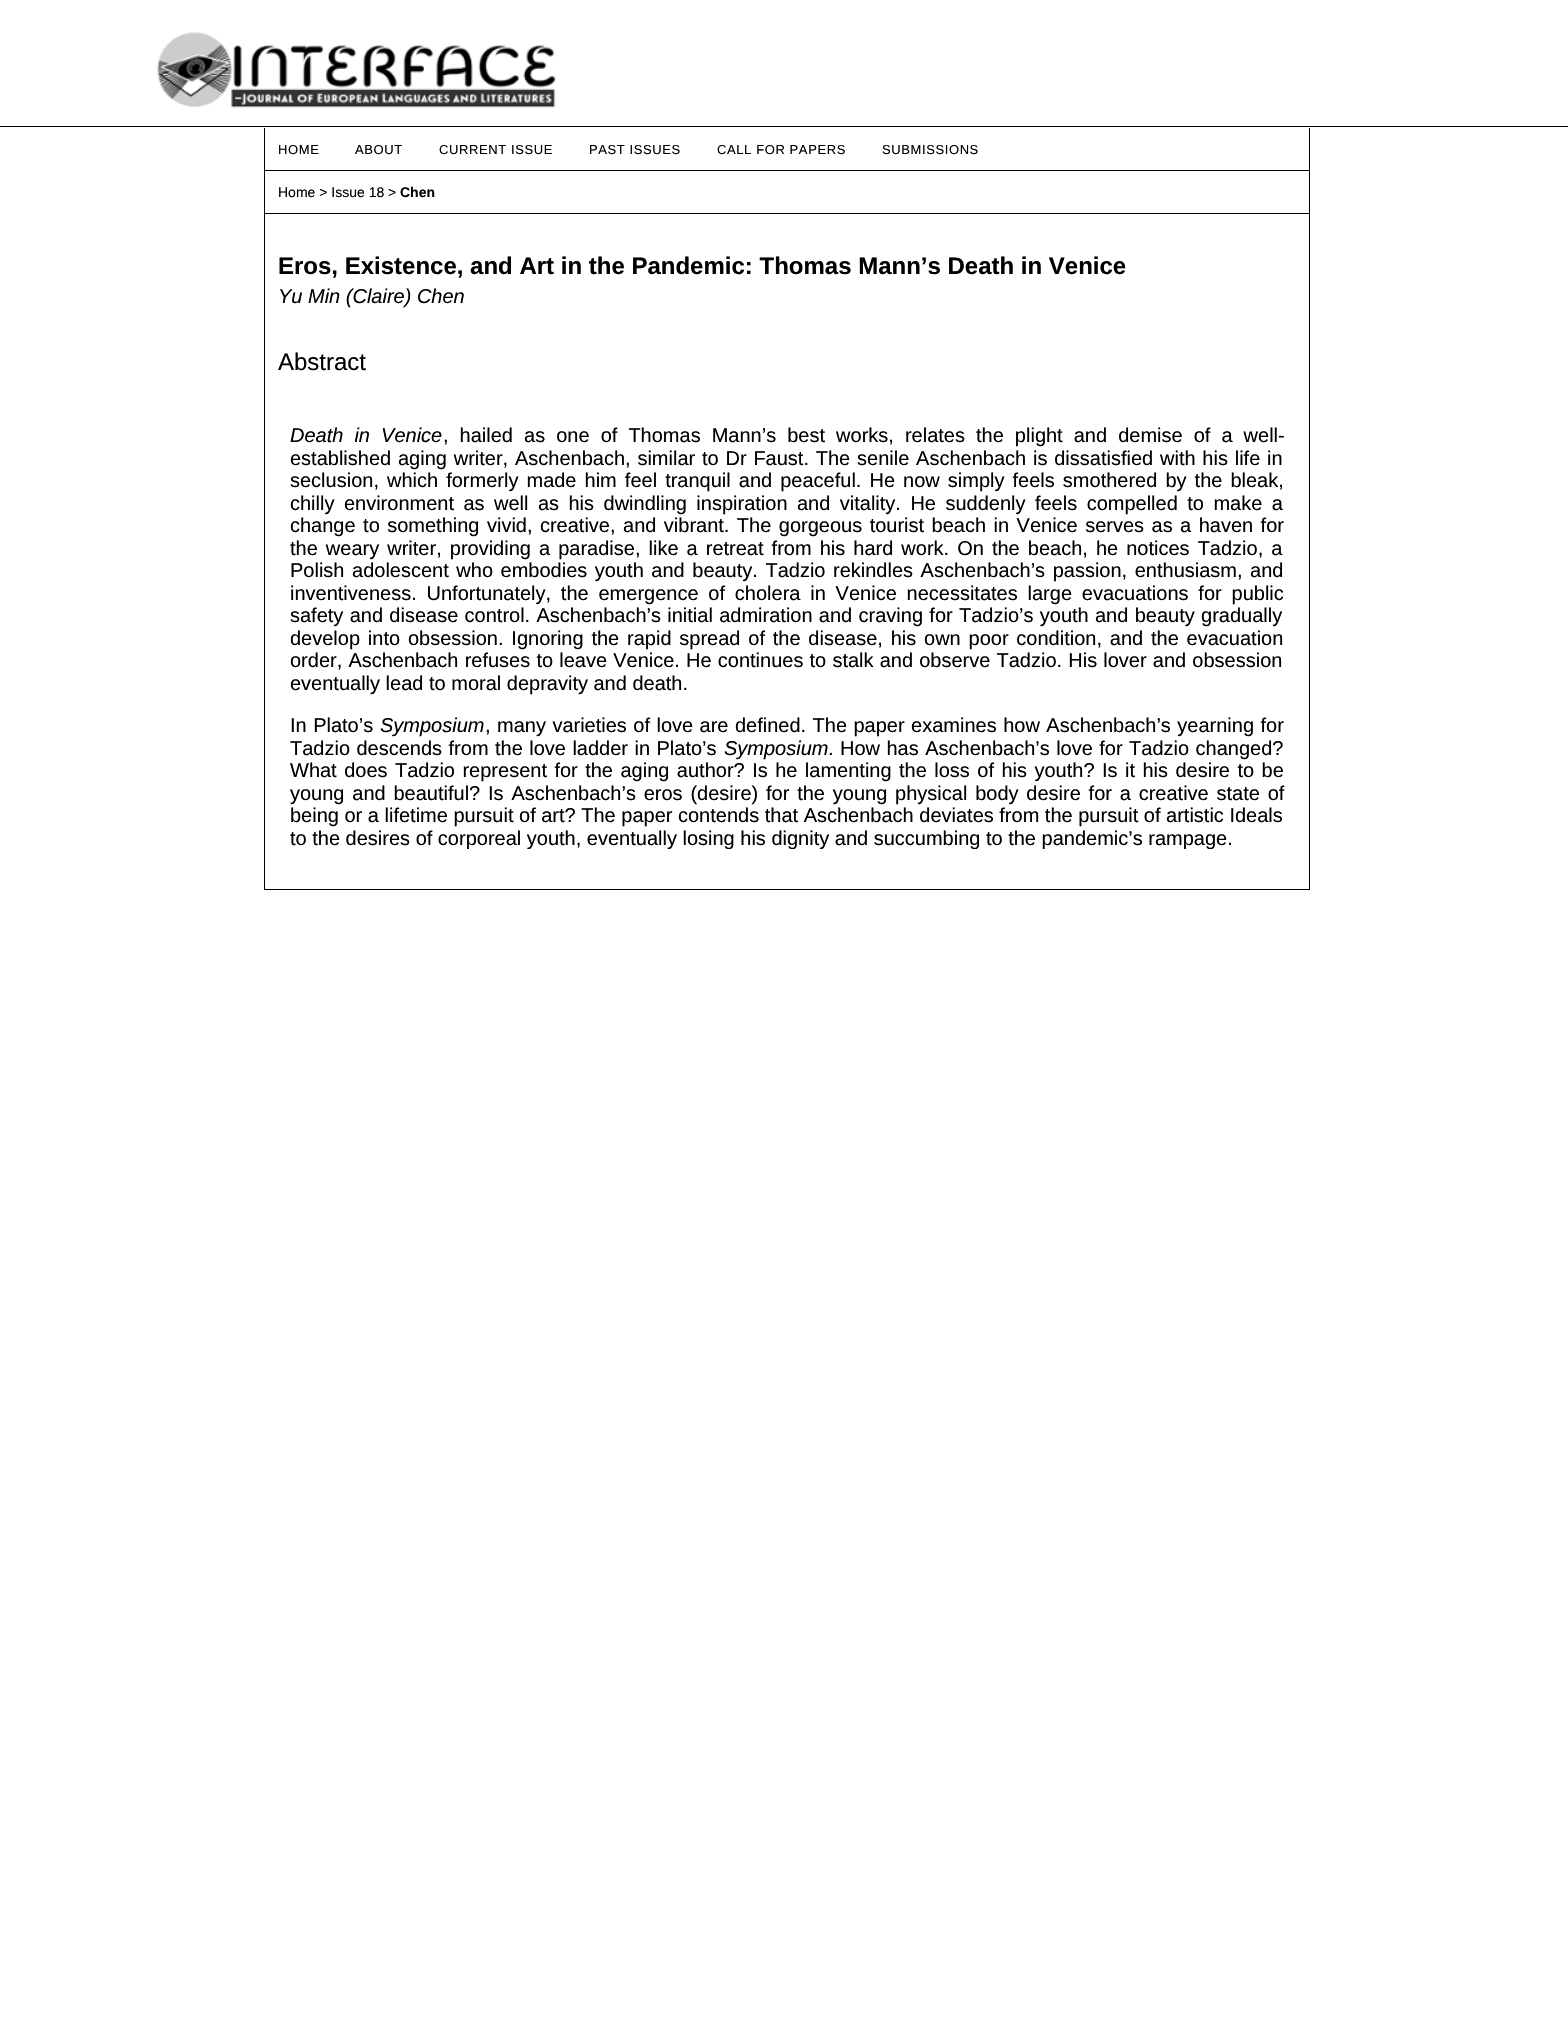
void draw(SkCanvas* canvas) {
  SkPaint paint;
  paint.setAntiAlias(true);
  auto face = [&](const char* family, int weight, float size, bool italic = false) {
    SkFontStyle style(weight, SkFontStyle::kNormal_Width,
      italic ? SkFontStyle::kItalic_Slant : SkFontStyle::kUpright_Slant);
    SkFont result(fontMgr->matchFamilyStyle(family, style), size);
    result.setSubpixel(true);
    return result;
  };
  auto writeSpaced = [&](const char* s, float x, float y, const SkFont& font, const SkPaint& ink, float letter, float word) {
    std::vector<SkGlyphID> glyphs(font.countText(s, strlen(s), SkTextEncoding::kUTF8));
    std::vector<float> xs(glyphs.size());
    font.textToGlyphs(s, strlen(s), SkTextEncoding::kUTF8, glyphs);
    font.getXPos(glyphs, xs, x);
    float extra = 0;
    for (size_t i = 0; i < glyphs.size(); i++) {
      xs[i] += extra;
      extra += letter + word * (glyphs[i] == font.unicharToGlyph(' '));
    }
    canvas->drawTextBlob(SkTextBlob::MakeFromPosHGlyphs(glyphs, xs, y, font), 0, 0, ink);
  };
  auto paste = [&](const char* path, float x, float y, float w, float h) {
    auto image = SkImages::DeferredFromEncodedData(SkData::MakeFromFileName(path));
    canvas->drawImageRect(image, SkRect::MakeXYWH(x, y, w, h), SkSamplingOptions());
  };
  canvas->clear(0xffffffff);
  paint.setColor(0xff000000);
  canvas->drawRect(SkRect::MakeXYWH(0, 126, 1568, 1), paint);
  paste("img/1.png", 157, 32, 399, 76);
  {
    const struct { float x, y, w, h; SkColor color; } items[] = {
      {1309, 128, 1, 762, 0xff000000},
      {264, 889, 1046, 1, 0xff000000},
      {264, 128, 1, 762, 0xff000000},
      {265, 170, 1044, 1, 0xff000000},
      {265, 213, 1044, 1, 0xff000000},
    };
    for (auto [x, y, w, h, color] : items) {
      paint.setColor(color);
      canvas->drawRect(SkRect::MakeXYWH(x, y, w, h), paint);
    }
  }
  auto f0 = face("Liberation Sans", 400, 13);
  {
    const struct { const char* s; float x, y; } items[] = {
      {"HOME", 278, 154},
      {"ABOUT", 355, 154},
      {"CURRENT ISSUE", 439, 154},
      {"PAST ISSUES", 589, 154},
      {"CALL FOR PAPERS", 717, 154},
      {"SUBMISSIONS", 882, 154},
    };
    for (auto [s, x, y] : items) {
      writeSpaced(s, x, y, f0, paint, 0.6f, 0);
    }
  }
  auto f1 = face("Liberation Sans", 400, 14);
  canvas->drawString("Home > Issue 18 >", 278, 197, f1, paint);
  auto f2 = face("Liberation Sans", 700, 14);
  canvas->drawString("Chen", 400, 197, f2, paint);
  auto f3 = face("Liberation Sans", 700, 24);
  canvas->drawString("Eros, Existence, and Art in the Pandemic: Thomas Mann’s Death in Venice", 278, 274, f3, paint);
  auto f4 = face("Liberation Sans", 400, 20, true);
  canvas->drawString("Yu Min (Claire) Chen", 278, 303, f4, paint);
  auto f5 = face("Liberation Sans", 400, 24);
  canvas->drawString("Abstract", 278, 370, f5, paint);
  writeSpaced("Death in Venice", 290, 442, f4, paint, 0, 5.5f);
  auto f6 = face("Liberation Sans", 400, 20);
  writeSpaced(", hailed as one of Thomas Mann’s best works, relates the plight and demise of a well-", 443, 442, f6, paint, 0, 5.5f);
  writeSpaced("established aging writer, Aschenbach, similar to Dr Faust. The senile Aschenbach is dissatisfied with his life in", 290, 465, f6, paint, 0, 1.25f);
  writeSpaced("seclusion, which formerly made him feel tranquil and peaceful. He now simply feels smothered by the bleak,", 290, 487, f6, paint, 0, 2.5f);
  writeSpaced("chilly environment as well as his dwindling inspiration and vitality. He suddenly feels compelled to make a", 290, 510, f6, paint, 0, 3.9f);
  writeSpaced("change to something vivid, creative, and vibrant. The gorgeous tourist beach in Venice serves as a haven for", 290, 532, f6, paint, 0, 1.9f);
  writeSpaced("the weary writer, providing a paradise, like a retreat from his hard work. On the beach, he notices Tadzio, a", 290, 555, f6, paint, 0, 2.5f);
  writeSpaced("Polish adolescent who embodies youth and beauty. Tadzio rekindles Aschenbach’s passion, enthusiasm, and", 290, 577, f6, paint, 0, 2);
  writeSpaced("inventiveness. Unfortunately, the emergence of cholera in Venice necessitates large evacuations for public", 290, 600, f6, paint, 0, 4.25f);
  writeSpaced("safety and disease control. Aschenbach’s initial admiration and craving for Tadzio’s youth and beauty gradually", 290, 622, f6, paint, 0, 0.75f);
  writeSpaced("develop into obsession. Ignoring the rapid spread of the disease, his own poor condition, and the evacuation", 290, 645, f6, paint, 0, 2.25f);
  writeSpaced("order, Aschenbach refuses to leave Venice. He continues to stalk and observe Tadzio. His lover and obsession", 290, 667, f6, paint, 0, 0.6f);
  canvas->drawString("eventually lead to moral depravity and death.", 290, 690, f6, paint);
  writeSpaced("In Plato’s", 290, 732, f6, paint, 0, 0.9f);
  canvas->drawString("Symposium", 380, 732, f4, paint);
  writeSpaced(", many varieties of love are defined. The paper examines how Aschenbach’s yearning for", 485, 732, f6, paint, 0, 0.9f);
  writeSpaced("Tadzio descends from the love ladder in Plato’s", 290, 755, f6, paint, 0, 0.9f);
  canvas->drawString("Symposium", 724, 755, f4, paint);
  writeSpaced(". How has Aschenbach’s love for Tadzio changed?", 828, 755, f6, paint, 0, 0.9f);
  writeSpaced("What does Tadzio represent for the aging author? Is he lamenting the loss of his youth? Is it his desire to be", 290, 777, f6, paint, 0, 1.9f);
  writeSpaced("young and beautiful? Is Aschenbach’s eros (desire) for the young physical body desire for a creative state of", 290, 800, f6, paint, 0, 2.25f);
  canvas->drawString("being or a lifetime pursuit of art? The paper contends that Aschenbach deviates from the pursuit of artistic Ideals", 290, 822, f6, paint);
  canvas->save();
  canvas->clipRect(SkRect::MakeXYWH(265, 214, 1044, 635));
  canvas->drawString("to the desires of corporeal youth, eventually losing his dignity and succumbing to the pandemic’s rampage.", 290, 845, f6, paint);
  canvas->restore();
}
